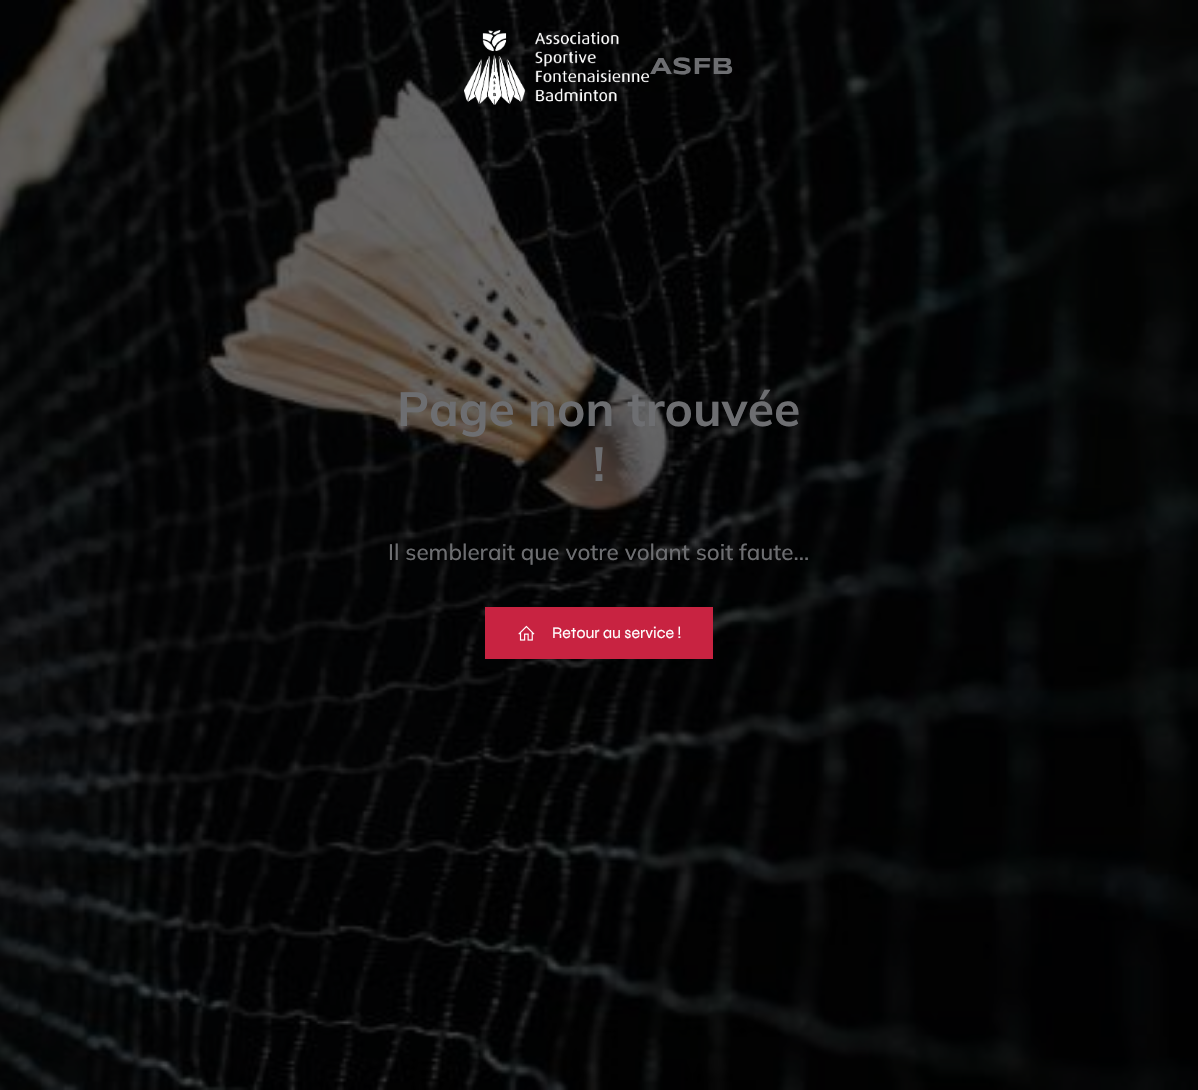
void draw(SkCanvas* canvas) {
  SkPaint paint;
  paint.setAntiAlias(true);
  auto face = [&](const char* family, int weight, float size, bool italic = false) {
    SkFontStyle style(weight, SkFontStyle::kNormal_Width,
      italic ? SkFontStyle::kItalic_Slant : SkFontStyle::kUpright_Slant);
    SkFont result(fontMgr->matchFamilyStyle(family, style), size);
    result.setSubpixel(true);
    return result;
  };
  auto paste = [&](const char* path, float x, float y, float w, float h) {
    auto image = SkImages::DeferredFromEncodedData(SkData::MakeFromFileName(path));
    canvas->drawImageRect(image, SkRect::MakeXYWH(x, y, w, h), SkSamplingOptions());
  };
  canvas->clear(0xffffffff);
  paste("img/2.png", 0, 0, 1198, 1090);
  paste("img/1.png", 464, 30, 186, 75);
  paint.setColor(0xffc82341);
  canvas->drawRect(SkRect::MakeXYWH(485, 607, 228, 52), paint);
  paste("img/3.png", 518, 625, 17, 16);
  auto f0 = face("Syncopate", 700, 24);
  paint.setColor(0xff6d6e71);
  canvas->drawString("ASFB", 650, 74, f0, paint);
  auto f1 = face("Mulish", 700, 48);
  canvas->drawString("Page non trouvée", 397, 426, f1, paint);
  canvas->drawString("!", 593, 481, f1, paint);
  auto f2 = face("Mulish", 500, 22.4f);
  canvas->drawString("Il semblerait que votre volant soit faute...", 388, 560, f2, paint);
  auto f3 = face("Syne", 400, 16);
  paint.setColor(0xffffffff);
  canvas->drawString("Retour au service !", 552, 638, f3, paint);
}
